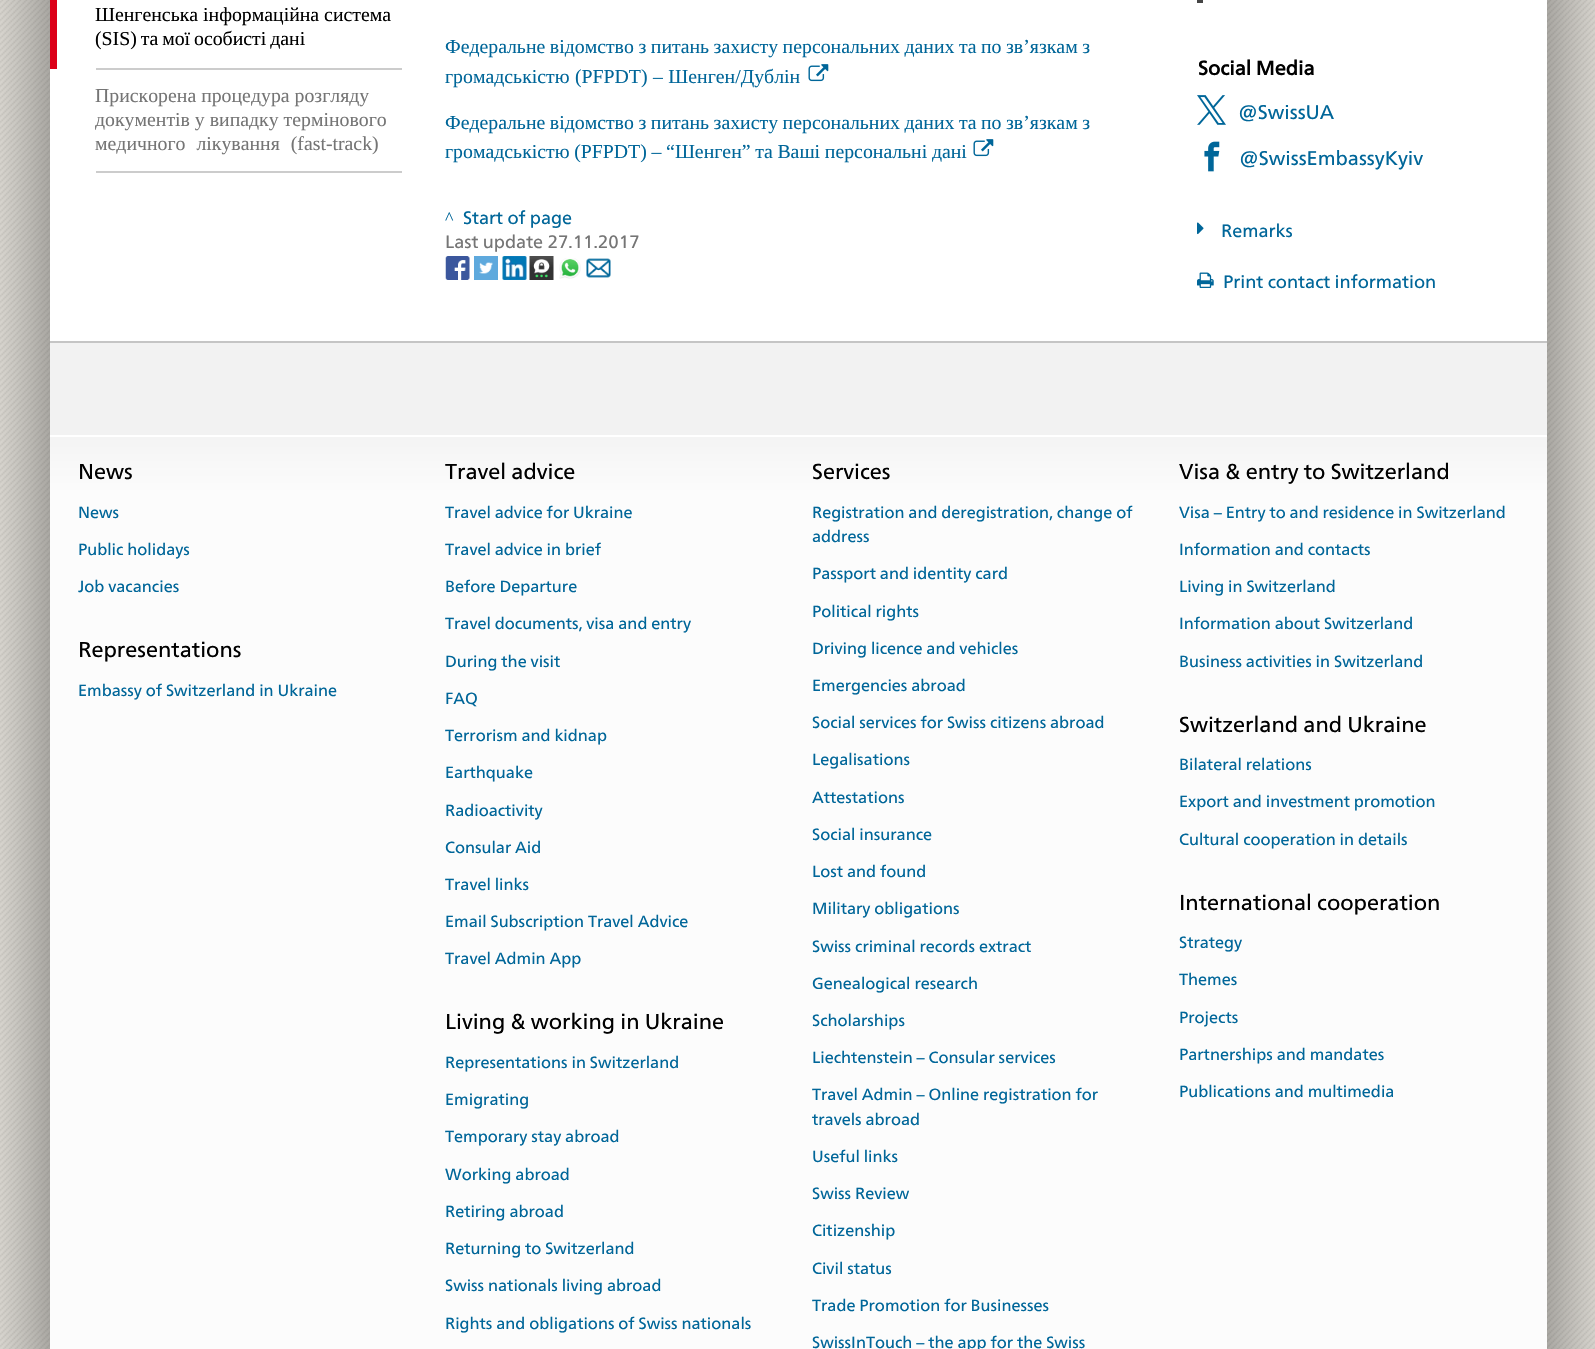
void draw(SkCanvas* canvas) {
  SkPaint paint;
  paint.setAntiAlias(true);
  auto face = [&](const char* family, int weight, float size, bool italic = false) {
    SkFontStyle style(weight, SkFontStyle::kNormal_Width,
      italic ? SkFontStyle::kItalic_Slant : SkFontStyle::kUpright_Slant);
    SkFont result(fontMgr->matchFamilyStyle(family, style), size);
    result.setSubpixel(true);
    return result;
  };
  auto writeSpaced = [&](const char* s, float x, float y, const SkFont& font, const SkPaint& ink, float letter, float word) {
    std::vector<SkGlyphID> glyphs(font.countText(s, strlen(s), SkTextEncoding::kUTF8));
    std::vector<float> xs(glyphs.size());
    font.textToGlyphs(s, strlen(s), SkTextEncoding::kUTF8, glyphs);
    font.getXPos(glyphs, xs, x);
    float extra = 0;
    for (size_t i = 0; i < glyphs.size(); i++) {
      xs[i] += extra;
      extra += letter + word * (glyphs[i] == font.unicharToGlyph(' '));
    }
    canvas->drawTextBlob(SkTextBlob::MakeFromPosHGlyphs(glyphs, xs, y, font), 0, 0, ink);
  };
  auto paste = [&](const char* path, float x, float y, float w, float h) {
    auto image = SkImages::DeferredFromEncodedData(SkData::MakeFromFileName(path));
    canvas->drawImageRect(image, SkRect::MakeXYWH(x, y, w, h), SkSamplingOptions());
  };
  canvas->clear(0xffffffff);
  paste("img/1.png", 0, 0, 1595, 1349);
  paint.setColor(0x99000000);
  paint.setMaskFilter(SkMaskFilter::MakeBlur(kNormal_SkBlurStyle, 54));
  canvas->drawRect(SkRect::MakeXYWH(50, -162, 1497, 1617), paint);
  paint.setMaskFilter(nullptr);
  {
    const struct { float x, y, w, h; SkColor color; } items[] = {
      {50, 0, 1497, 341, 0xffffffff},
      {50, 0, 7, 69, 0xffdc0018},
      {96, 68, 306, 2, 0xffcccccc},
      {96, 171, 306, 2, 0xffcccccc},
    };
    for (auto [x, y, w, h, color] : items) {
      paint.setColor(color);
      canvas->drawRect(SkRect::MakeXYWH(x, y, w, h), paint);
    }
  }
  paste("img/2.png", 808, 64, 21, 18);
  paste("img/2.png", 973, 139, 21, 18);
  paste("img/3.png", 445, 256, 25, 24);
  paste("img/4.png", 474, 256, 24, 24);
  paste("img/5.png", 502, 256, 25, 24);
  paste("img/6.png", 529, 256, 25, 24);
  paste("img/7.png", 559, 258, 22, 21);
  paste("img/8.png", 586, 258, 25, 20);
  paint.setColor(0xff454545);
  canvas->drawRect(SkRect::MakeXYWH(1197, 0, 6, 3), paint);
  paste("img/9.png", 1197, 95, 29, 30);
  paste("img/10.png", 1204, 141, 16, 31);
  paste("img/11.png", 1197, 222, 7, 13);
  paste("img/12.png", 1197, 272, 17, 16);
  paint.setColor(0xfff2f2f2);
  canvas->drawRect(SkRect::MakeXYWH(50, 343, 1497, 92), paint);
  paint.setColor(0xffc5c5c5);
  canvas->drawRect(SkRect::MakeXYWH(50, 341, 1497, 2), paint);
  {
    const SkColor colors[] = {0xfff4f4f4, 0xfffcfcfc};
    const float stops[] = {0, 0.06f};
    const SkPoint ends[] = {{798, 436}, {798, 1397}};
    paint.setShader(SkGradientShader::MakeLinear(ends, colors, stops, 2, SkTileMode::kClamp));
    paint.setAlpha(255);
  }
  canvas->drawRect(SkRect::MakeXYWH(50, 437, 1497, 912), paint);
  paint.setShader(nullptr);
  paint.setColor(0xffffffff);
  canvas->drawRect(SkRect::MakeXYWH(50, 435, 1497, 2), paint);
  auto f0 = face("Liberation Serif", 400, 19.8f);
  paint.setColor(0xff000000);
  canvas->drawString("Шенгенська інформаційна система", 95, 21, f0, paint);
  writeSpaced("(SIS) та мої особисті дані", 95, 45, f0, paint, 0, -1);
  paint.setColor(0xff757575);
  canvas->drawString("Прискорена процедура розгляду", 95, 102, f0, paint);
  canvas->drawString("документів у випадку термінового", 95, 126, f0, paint);
  writeSpaced("медичного лікування (fast-track)", 95, 150, f0, paint, 0, 6);
  paint.setColor(0xff006699);
  writeSpaced("Федеральне відомство з питань захисту персональних даних та по зв’язкам з", 445, 53, f0, paint, 0, -0.4f);
  writeSpaced("громадськістю (PFPDT) – Шенген/Дублін", 445, 83, f0, paint, 0, 0.5f);
  writeSpaced("Федеральне відомство з питань захисту персональних даних та по зв’язкам з", 445, 129, f0, paint, 0, -0.4f);
  writeSpaced("громадськістю (PFPDT) – “Шенген” та Ваші персональні дані", 445, 158, f0, paint, 0, -0.25f);
  auto f1 = face("Liberation Serif", 400, 18);
  canvas->drawString("^", 445, 224, f1, paint);
  auto f2 = face("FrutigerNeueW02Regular", 400, 18);
  canvas->drawString("Start of page", 463, 224, f2, paint);
  paint.setColor(0xff757575);
  canvas->drawString("Last update 27.11.2017", 445, 248, f2, paint);
  auto f3 = face("FrutigerNeueW02Regular", 700, 19.8f);
  paint.setColor(0xff000000);
  canvas->drawString("Social Media", 1198, 75, f3, paint);
  auto f4 = face("FrutigerNeueW02Regular", 400, 19.8f);
  paint.setColor(0xff006699);
  canvas->drawString("@SwissUA", 1238, 119, f4, paint);
  canvas->drawString("@SwissEmbassyKyiv", 1239, 165, f4, paint);
  canvas->drawString("Remarks", 1221, 237, f2, paint);
  canvas->drawString("Print contact information", 1223, 288, f2, paint);
  auto f5 = face("FrutigerNeueW02Regular", 400, 21.6f);
  paint.setColor(0xff000000);
  canvas->drawString("News", 78, 479, f5, paint);
  auto f6 = face("FrutigerNeueW02Regular", 400, 16.2f);
  paint.setColor(0xff006699);
  {
    const struct { const char* s; float x, y; } items[] = {
      {"News", 78, 518},
      {"Public holidays", 78, 555},
      {"Job vacancies", 78, 592},
    };
    for (auto [s, x, y] : items) {
      canvas->drawString(s, x, y, f6, paint);
    }
  }
  paint.setColor(0xff000000);
  canvas->drawString("Representations", 78, 657, f5, paint);
  paint.setColor(0xff006699);
  canvas->drawString("Embassy of Switzerland in Ukraine", 78, 696, f6, paint);
  paint.setColor(0xff000000);
  canvas->drawString("Travel advice", 445, 479, f5, paint);
  paint.setColor(0xff006699);
  {
    const struct { const char* s; float x, y; } items[] = {
      {"Travel advice for Ukraine", 445, 518},
      {"Travel advice in brief", 445, 555},
      {"Before Departure", 445, 592},
      {"Travel documents, visa and entry", 445, 629},
      {"During the visit", 445, 667},
      {"FAQ", 445, 704},
      {"Terrorism and kidnap", 445, 741},
      {"Earthquake", 445, 778},
      {"Radioactivity", 445, 816},
      {"Consular Aid", 445, 853},
      {"Travel links", 445, 890},
      {"Email Subscription Travel Advice", 445, 927},
      {"Travel Admin App", 445, 964},
    };
    for (auto [s, x, y] : items) {
      canvas->drawString(s, x, y, f6, paint);
    }
  }
  paint.setColor(0xff000000);
  canvas->drawString("Living & working in Ukraine", 445, 1029, f5, paint);
  paint.setColor(0xff006699);
  {
    const struct { const char* s; float x, y; } items[] = {
      {"Representations in Switzerland", 445, 1068},
      {"Emigrating", 445, 1105},
      {"Temporary stay abroad", 445, 1142},
      {"Working abroad", 445, 1180},
      {"Retiring abroad", 445, 1217},
      {"Returning to Switzerland", 445, 1254},
      {"Swiss nationals living abroad", 445, 1291},
      {"Rights and obligations of Swiss nationals", 445, 1329},
    };
    for (auto [s, x, y] : items) {
      canvas->drawString(s, x, y, f6, paint);
    }
  }
  paint.setColor(0xff000000);
  canvas->drawString("Services", 812, 479, f5, paint);
  paint.setColor(0xff006699);
  {
    const struct { const char* s; float x, y; } items[] = {
      {"Registration and deregistration, change of", 812, 518},
      {"address", 812, 542},
      {"Passport and identity card", 812, 579},
      {"Political rights", 812, 617},
      {"Driving licence and vehicles", 812, 654},
      {"Emergencies abroad", 812, 691},
      {"Social services for Swiss citizens abroad", 812, 728},
      {"Legalisations", 812, 765},
      {"Attestations", 812, 803},
      {"Social insurance", 812, 840},
      {"Lost and found", 812, 877},
      {"Military obligations", 812, 914},
      {"Swiss criminal records extract", 812, 952},
      {"Genealogical research", 812, 989},
      {"Scholarships", 812, 1026},
      {"Liechtenstein – Consular services", 812, 1063},
      {"Travel Admin – Online registration for", 812, 1100},
      {"travels abroad", 812, 1125},
      {"Useful links", 812, 1162},
      {"Swiss Review", 812, 1199},
      {"Citizenship", 812, 1236},
      {"Civil status", 812, 1274},
      {"Trade Promotion for Businesses", 812, 1311},
      {"SwissInTouch – the app for the Swiss", 812, 1348},
    };
    for (auto [s, x, y] : items) {
      canvas->drawString(s, x, y, f6, paint);
    }
  }
  paint.setColor(0xff000000);
  canvas->drawString("Visa & entry to Switzerland", 1179, 479, f5, paint);
  paint.setColor(0xff006699);
  {
    const struct { const char* s; float x, y; } items[] = {
      {"Visa – Entry to and residence in Switzerland", 1179, 518},
      {"Information and contacts", 1179, 555},
      {"Living in Switzerland", 1179, 592},
      {"Information about Switzerland", 1179, 629},
      {"Business activities in Switzerland", 1179, 667},
    };
    for (auto [s, x, y] : items) {
      canvas->drawString(s, x, y, f6, paint);
    }
  }
  paint.setColor(0xff000000);
  canvas->drawString("Switzerland and Ukraine", 1179, 732, f5, paint);
  paint.setColor(0xff006699);
  {
    const struct { const char* s; float x, y; } items[] = {
      {"Bilateral relations", 1179, 770},
      {"Export and investment promotion", 1179, 807},
      {"Cultural cooperation in details", 1179, 845},
    };
    for (auto [s, x, y] : items) {
      canvas->drawString(s, x, y, f6, paint);
    }
  }
  paint.setColor(0xff000000);
  canvas->drawString("International cooperation", 1179, 910, f5, paint);
  paint.setColor(0xff006699);
  {
    const struct { const char* s; float x, y; } items[] = {
      {"Strategy", 1179, 948},
      {"Themes", 1179, 985},
      {"Projects", 1179, 1023},
      {"Partnerships and mandates", 1179, 1060},
      {"Publications and multimedia", 1179, 1097},
    };
    for (auto [s, x, y] : items) {
      canvas->drawString(s, x, y, f6, paint);
    }
  }
}
